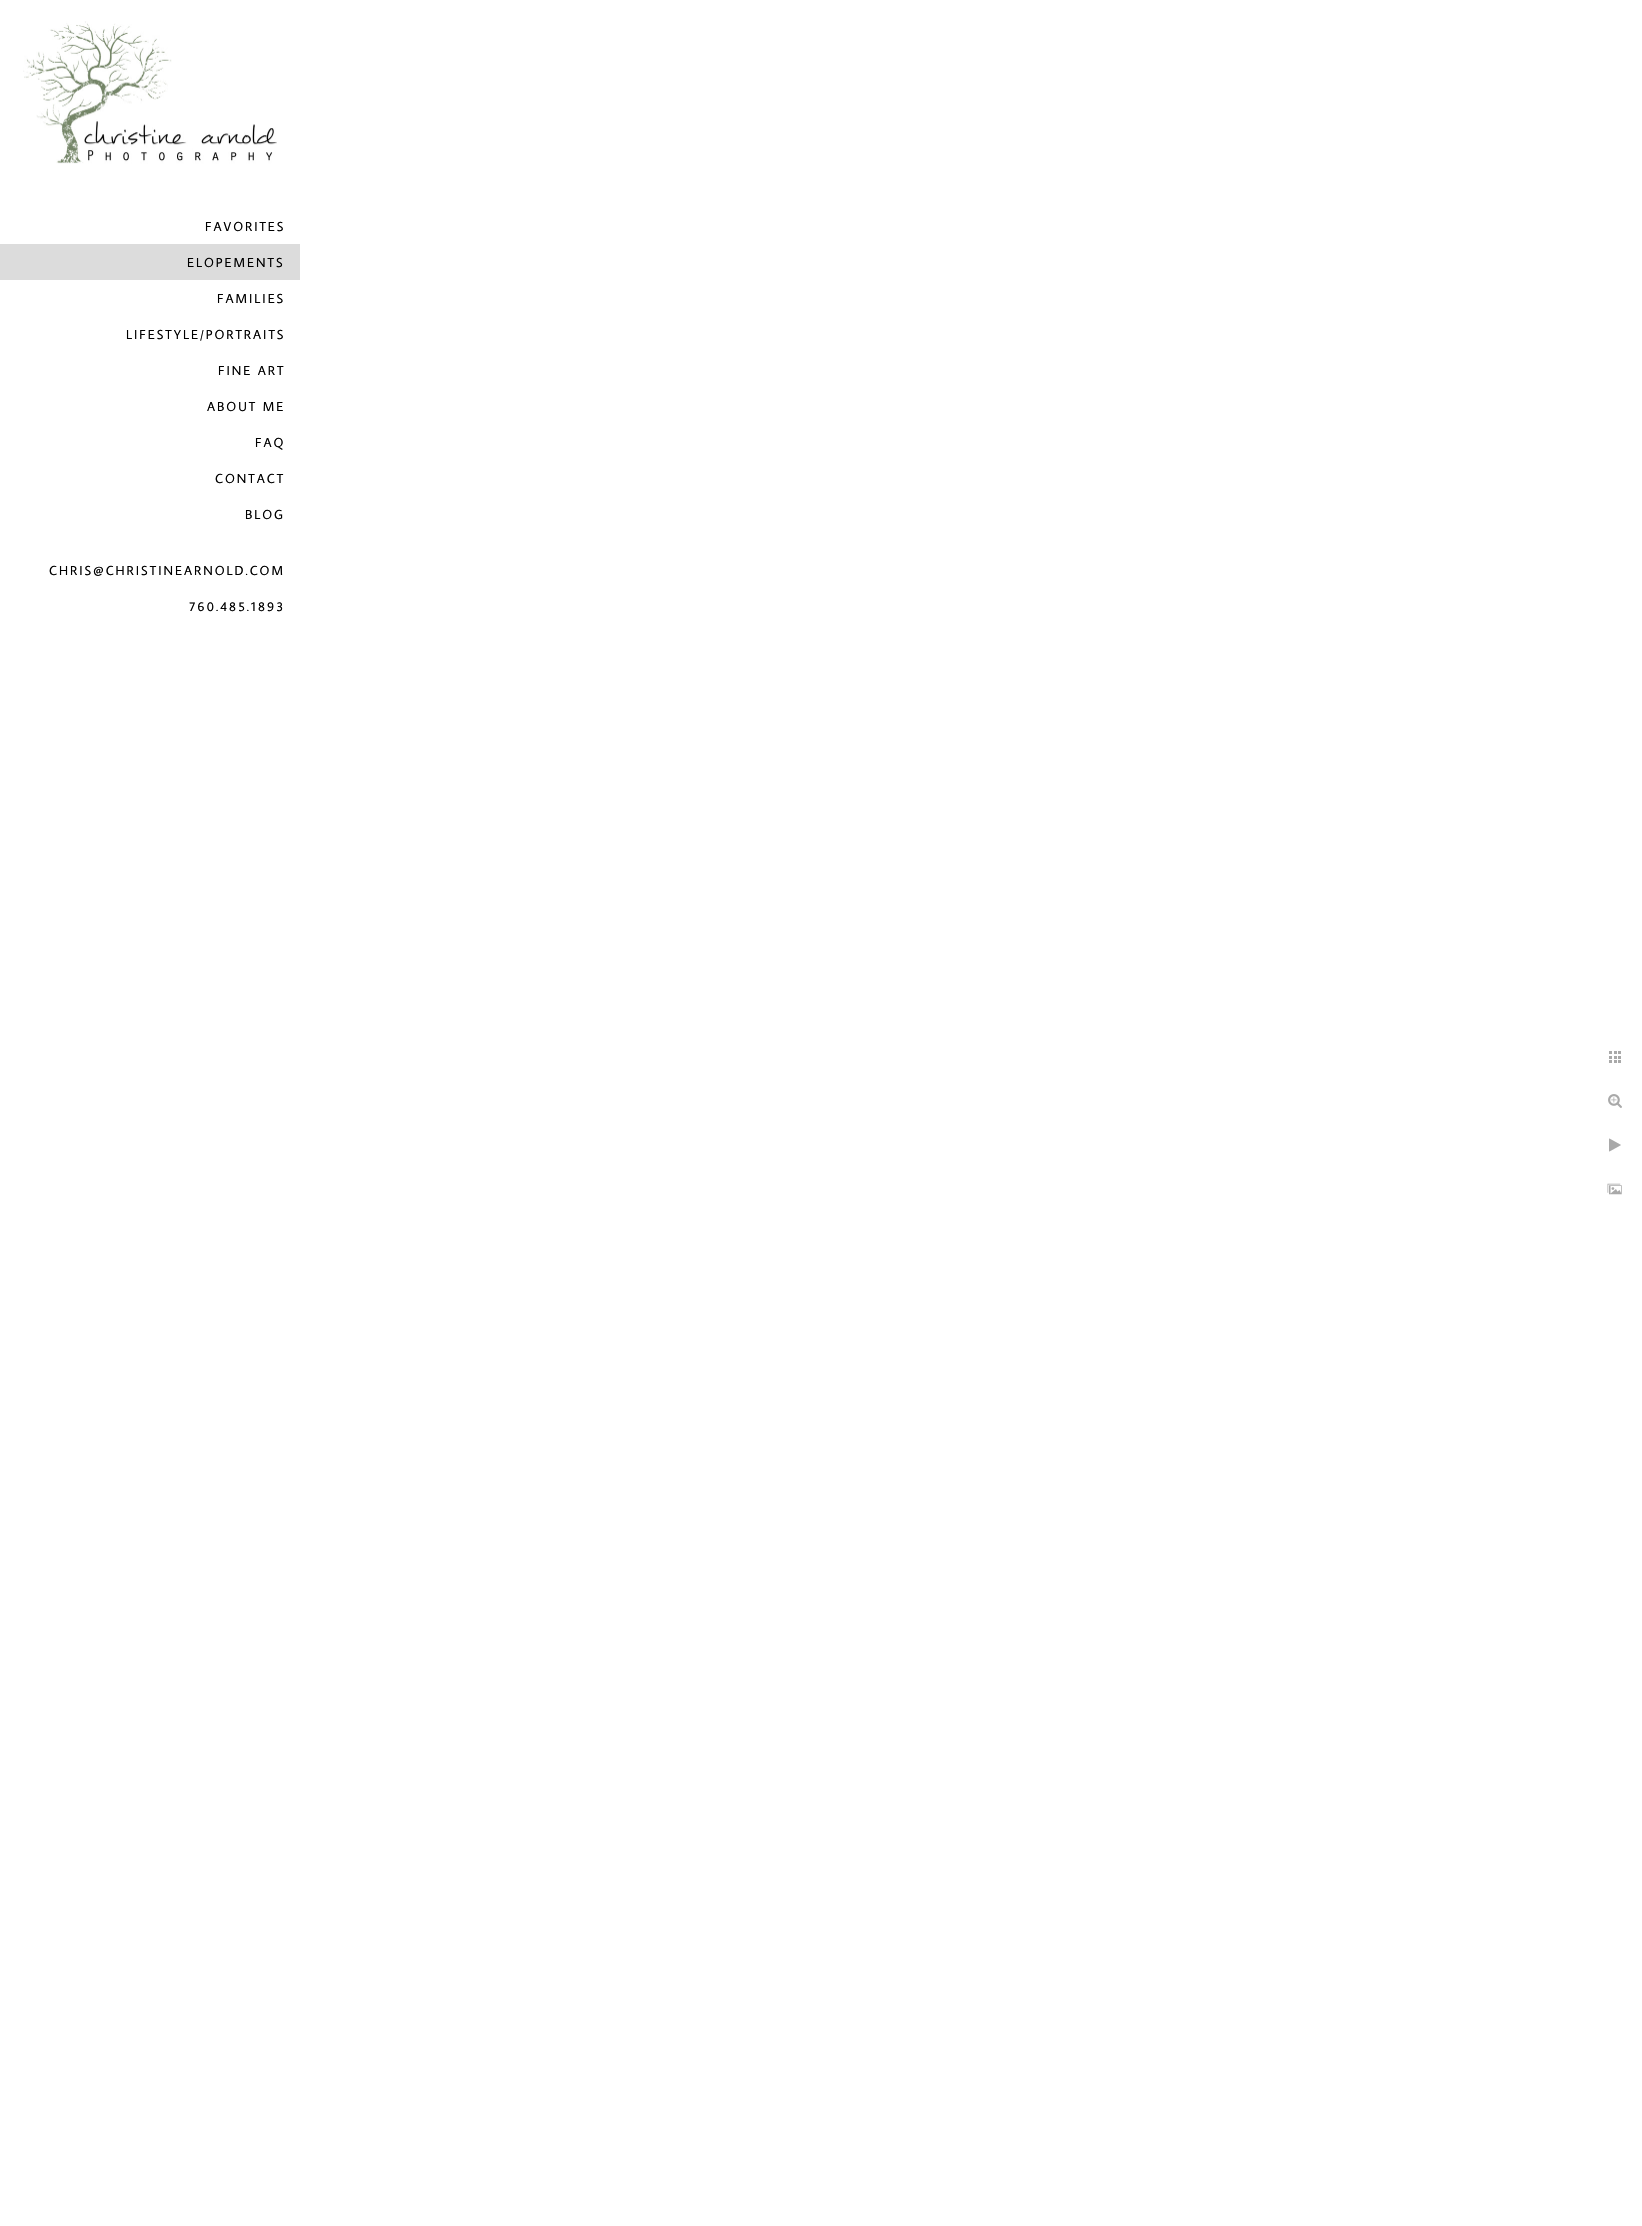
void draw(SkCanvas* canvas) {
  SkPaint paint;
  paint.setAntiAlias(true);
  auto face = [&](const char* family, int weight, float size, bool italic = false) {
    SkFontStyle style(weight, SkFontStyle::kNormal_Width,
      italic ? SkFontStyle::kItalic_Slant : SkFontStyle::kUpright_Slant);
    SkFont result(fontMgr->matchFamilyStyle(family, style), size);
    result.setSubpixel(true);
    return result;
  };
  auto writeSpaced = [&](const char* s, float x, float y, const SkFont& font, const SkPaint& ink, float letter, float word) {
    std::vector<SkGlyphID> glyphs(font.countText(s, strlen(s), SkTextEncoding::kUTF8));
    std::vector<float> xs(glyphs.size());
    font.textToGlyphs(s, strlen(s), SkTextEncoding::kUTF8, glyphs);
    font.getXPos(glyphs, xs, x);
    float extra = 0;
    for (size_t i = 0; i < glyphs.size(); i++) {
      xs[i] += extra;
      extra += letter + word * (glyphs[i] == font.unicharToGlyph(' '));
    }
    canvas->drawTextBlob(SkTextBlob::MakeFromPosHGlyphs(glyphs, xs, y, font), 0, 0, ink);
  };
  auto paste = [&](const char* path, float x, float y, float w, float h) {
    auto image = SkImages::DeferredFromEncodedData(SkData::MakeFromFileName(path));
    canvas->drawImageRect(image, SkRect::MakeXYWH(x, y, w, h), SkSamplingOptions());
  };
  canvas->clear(0xffffffff);
  paste("img/1.png", 23, 21, 254, 143);
  paint.setColor(0xffdcdcdc);
  canvas->drawRect(SkRect::MakeXYWH(0, 244, 300, 36), paint);
  paste("img/2.png", 1609, 1051, 12, 12);
  paste("img/3.png", 1608, 1094, 14, 14);
  paste("img/4.png", 1609, 1138, 12, 14);
  paste("img/5.png", 1607, 1183, 15, 12);
  auto f0 = face("Average Sans", 400, 13);
  paint.setColor(0xff000000);
  {
    const struct { const char* s; float x, y; } items[] = {
      {"FAVORITES", 205, 231},
      {"ELOPEMENTS", 187, 267},
      {"FAMILIES", 217, 303},
      {"LIFESTYLE/PORTRAITS", 126, 339},
      {"FINE ART", 218, 375},
      {"ABOUT ME", 207, 411},
      {"FAQ", 255, 447},
      {"CONTACT", 215, 483},
      {"BLOG", 245, 519},
      {"CHRIS@CHRISTINEARNOLD.COM", 49, 575},
      {"760.485.1893", 189, 611},
    };
    for (auto [s, x, y] : items) {
      writeSpaced(s, x, y, f0, paint, 2, 0);
    }
  }
}
